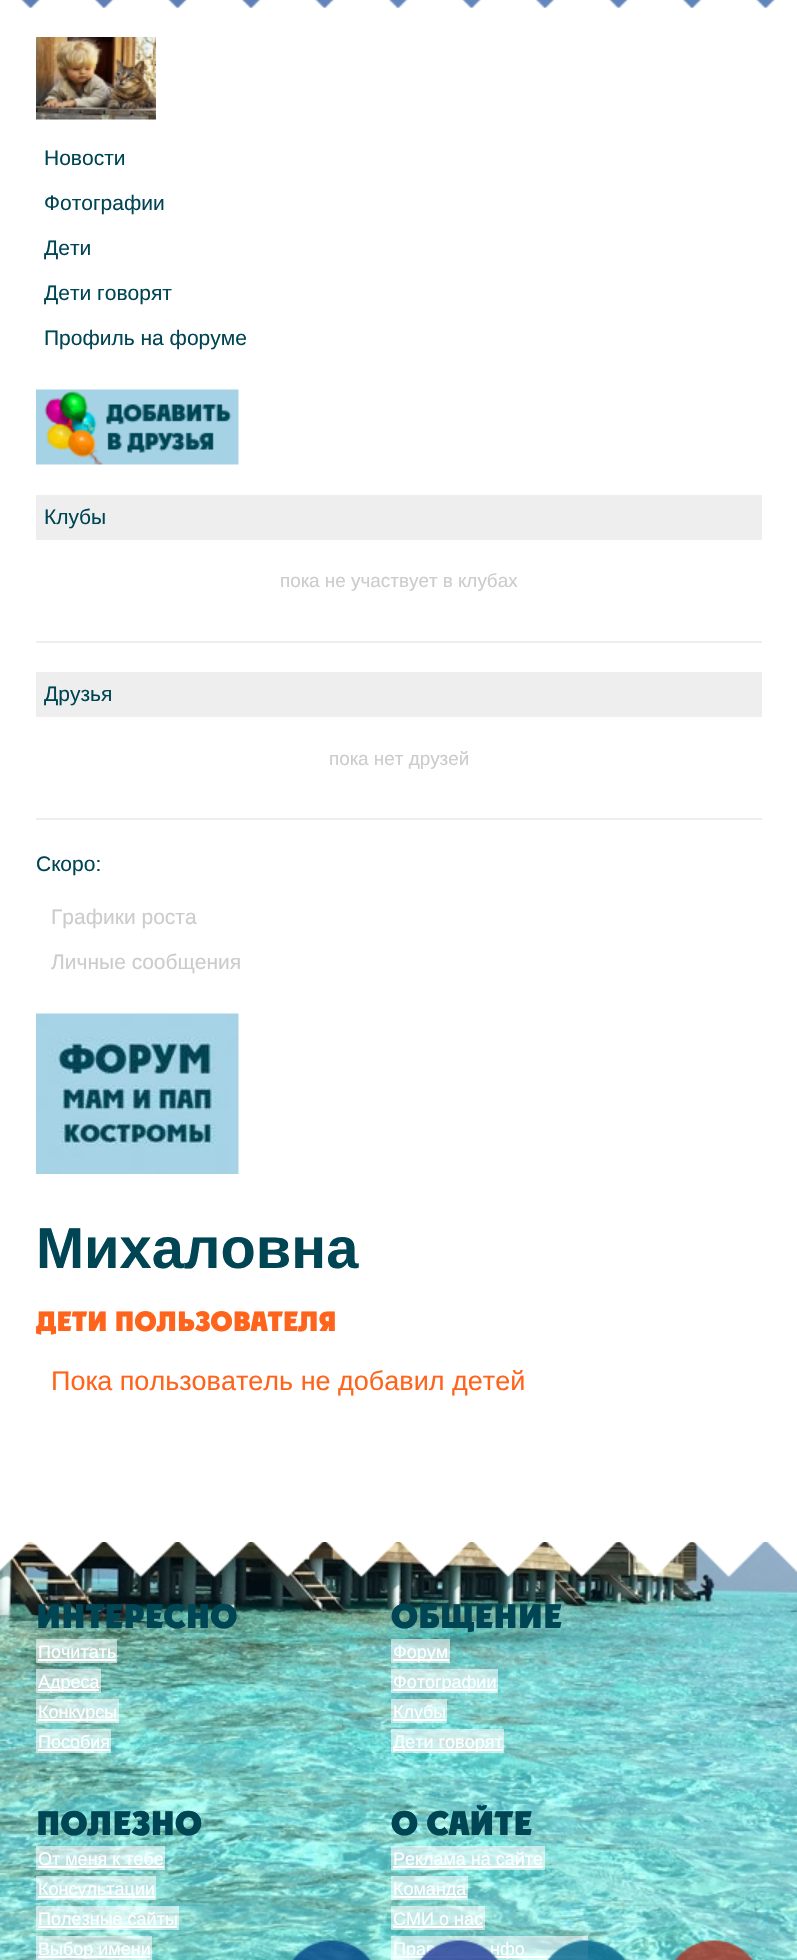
void draw(SkCanvas* canvas) {
  SkPaint paint;
  paint.setAntiAlias(true);
  auto face = [&](const char* family, int weight, float size, bool italic = false) {
    SkFontStyle style(weight, SkFontStyle::kNormal_Width,
      italic ? SkFontStyle::kItalic_Slant : SkFontStyle::kUpright_Slant);
    SkFont result(fontMgr->matchFamilyStyle(family, style), size);
    result.setSubpixel(true);
    return result;
  };
  auto paste = [&](const char* path, float x, float y, float w, float h) {
    auto image = SkImages::DeferredFromEncodedData(SkData::MakeFromFileName(path));
    canvas->drawImageRect(image, SkRect::MakeXYWH(x, y, w, h), SkSamplingOptions());
  };
  canvas->clear(0xffffffff);
  paste("img/1.png", 21, 0, 754, 8);
  paste("img/2.png", 0, 0, 797, 8);
  paste("img/3.png", 36, 37, 120, 83);
  paste("img/4.png", 36, 389, 203, 76);
  {
    const struct { float x, y, w, h; SkColor color; } items[] = {
      {36, 641, 726, 2, 0xffeeeeee},
      {36, 495, 726, 45, 0xffeeeeee},
      {36, 818, 726, 2, 0xffeeeeee},
      {36, 672, 726, 45, 0xffeeeeee},
    };
    for (auto [x, y, w, h, color] : items) {
      paint.setColor(color);
      canvas->drawRect(SkRect::MakeXYWH(x, y, w, h), paint);
    }
  }
  paste("img/5.png", 36, 1013, 203, 161);
  paste("img/6.png", 0, 1542, 797, 418);
  paste("img/7.png", 0, 1542, 797, 36);
  {
    const struct { float x, y, w, h; SkColor color; } items[] = {
      {36, 1639, 81, 24, 0x96ffffff},
      {38, 1659, 78, 2, 0xffffffff},
      {36, 1669, 65, 24, 0x96ffffff},
      {38, 1689, 61, 2, 0xffffffff},
      {36, 1699, 83, 24, 0x96ffffff},
      {38, 1719, 79, 2, 0xffffffff},
      {36, 1729, 75, 24, 0x96ffffff},
      {38, 1749, 72, 2, 0xffffffff},
      {391, 1639, 59, 24, 0x96ffffff},
      {393, 1659, 56, 2, 0xffffffff},
      {391, 1669, 107, 24, 0x96ffffff},
      {393, 1689, 104, 2, 0xffffffff},
      {391, 1699, 56, 24, 0x96ffffff},
      {393, 1719, 53, 2, 0xffffffff},
      {391, 1729, 113, 24, 0x96ffffff},
      {393, 1749, 110, 2, 0xffffffff},
      {36, 1846, 129, 24, 0x96ffffff},
      {38, 1866, 126, 2, 0xffffffff},
      {36, 1876, 120, 24, 0x96ffffff},
      {38, 1896, 117, 2, 0xffffffff},
      {36, 1906, 143, 24, 0x96ffffff},
      {38, 1926, 139, 2, 0xffffffff},
      {36, 1936, 116, 24, 0x96ffffff},
      {38, 1956, 112, 2, 0xffffffff},
      {391, 1846, 154, 24, 0x96ffffff},
      {393, 1866, 150, 2, 0xffffffff},
      {391, 1876, 77, 24, 0x96ffffff},
      {393, 1896, 74, 2, 0xffffffff},
      {391, 1906, 94, 24, 0x96ffffff},
      {393, 1926, 90, 2, 0xffffffff},
      {391, 1936, 197, 24, 0x96ffffff},
      {393, 1956, 194, 2, 0xffffffff},
    };
    for (auto [x, y, w, h, color] : items) {
      paint.setColor(color);
      canvas->drawRect(SkRect::MakeXYWH(x, y, w, h), paint);
    }
  }
  paste("img/8.png", 292, 1940, 79, 20);
  paste("img/10.png", 547, 1940, 79, 20);
  paste("img/11.png", 674, 1940, 80, 20);
  auto f0 = face("Liberation Sans", 400, 21);
  paint.setColor(0xff004554);
  {
    const struct { const char* s; float x, y; } items[] = {
      {"Новости", 44, 165},
      {"Фотографии", 44, 210},
      {"Дети", 44, 255},
      {"Дети говорят", 44, 300},
      {"Профиль на форуме", 44, 345},
      {"Клубы", 44, 524},
    };
    for (auto [s, x, y] : items) {
      canvas->drawString(s, x, y, f0, paint);
    }
  }
  auto f1 = face("Liberation Sans", 400, 18.9f);
  paint.setColor(0xffcccccc);
  canvas->drawString("пока не участвует в клубах", 280, 587, f1, paint);
  paint.setColor(0xff004554);
  canvas->drawString("Друзья", 44, 701, f0, paint);
  paint.setColor(0xffcccccc);
  canvas->drawString("пока нет друзей", 329, 765, f1, paint);
  paint.setColor(0xff004554);
  canvas->drawString("Скоро:", 36, 871, f0, paint);
  paint.setColor(0xffcccccc);
  canvas->drawString("Графики роста", 51, 924, f0, paint);
  canvas->drawString("Личные сообщения", 51, 969, f0, paint);
  auto f2 = face("Liberation Sans", 700, 57.75f);
  paint.setColor(0xff004554);
  canvas->drawString("Михаловна", 36, 1268, f2, paint);
  auto f3 = face("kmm", 800, 27);
  paint.setColor(0xffff641c);
  canvas->drawString("ДЕТИ ПОЛЬЗОВАТЕЛЯ", 36, 1331, f3, paint);
  auto f4 = face("Liberation Sans", 400, 27);
  canvas->drawString("Пока пользователь не добавил детей", 51, 1390, f4, paint);
  auto f5 = face("kmm", 800, 33);
  paint.setColor(0xff004554);
  canvas->drawString("ИНТЕРЕСНО", 36, 1628, f5, paint);
  auto f6 = face("Liberation Sans", 400, 18);
  paint.setColor(0xffffffff);
  {
    const struct { const char* s; float x, y; } items[] = {
      {"Почитать", 38, 1658},
      {"Адреса", 38, 1688},
      {"Конкурсы", 38, 1718},
      {"Пособия", 38, 1748},
    };
    for (auto [s, x, y] : items) {
      canvas->drawString(s, x, y, f6, paint);
    }
  }
  paint.setColor(0xff004554);
  canvas->drawString("ОБЩЕНИЕ", 391, 1628, f5, paint);
  paint.setColor(0xffffffff);
  {
    const struct { const char* s; float x, y; } items[] = {
      {"Форум", 393, 1658},
      {"Фотографии", 393, 1688},
      {"Клубы", 393, 1718},
      {"Дети говорят", 393, 1748},
    };
    for (auto [s, x, y] : items) {
      canvas->drawString(s, x, y, f6, paint);
    }
  }
  paint.setColor(0xff004554);
  canvas->drawString("ПОЛЕЗНО", 36, 1835, f5, paint);
  paint.setColor(0xffffffff);
  {
    const struct { const char* s; float x, y; } items[] = {
      {"От меня к тебе", 38, 1865},
      {"Консультации", 38, 1895},
      {"Полезные сайты", 38, 1925},
      {"Выбор имени", 38, 1955},
    };
    for (auto [s, x, y] : items) {
      canvas->drawString(s, x, y, f6, paint);
    }
  }
  paint.setColor(0xff004554);
  canvas->drawString("О САЙТЕ", 391, 1835, f5, paint);
  paint.setColor(0xffffffff);
  {
    const struct { const char* s; float x, y; } items[] = {
      {"Реклама на сайте", 393, 1865},
      {"Команда", 393, 1895},
      {"СМИ о нас", 393, 1925},
      {"Прав", 393, 1955},
      {"нфо", 490, 1955},
    };
    for (auto [s, x, y] : items) {
      canvas->drawString(s, x, y, f6, paint);
    }
  }
  paste("img/9.png", 419, 1940, 80, 20);
}
